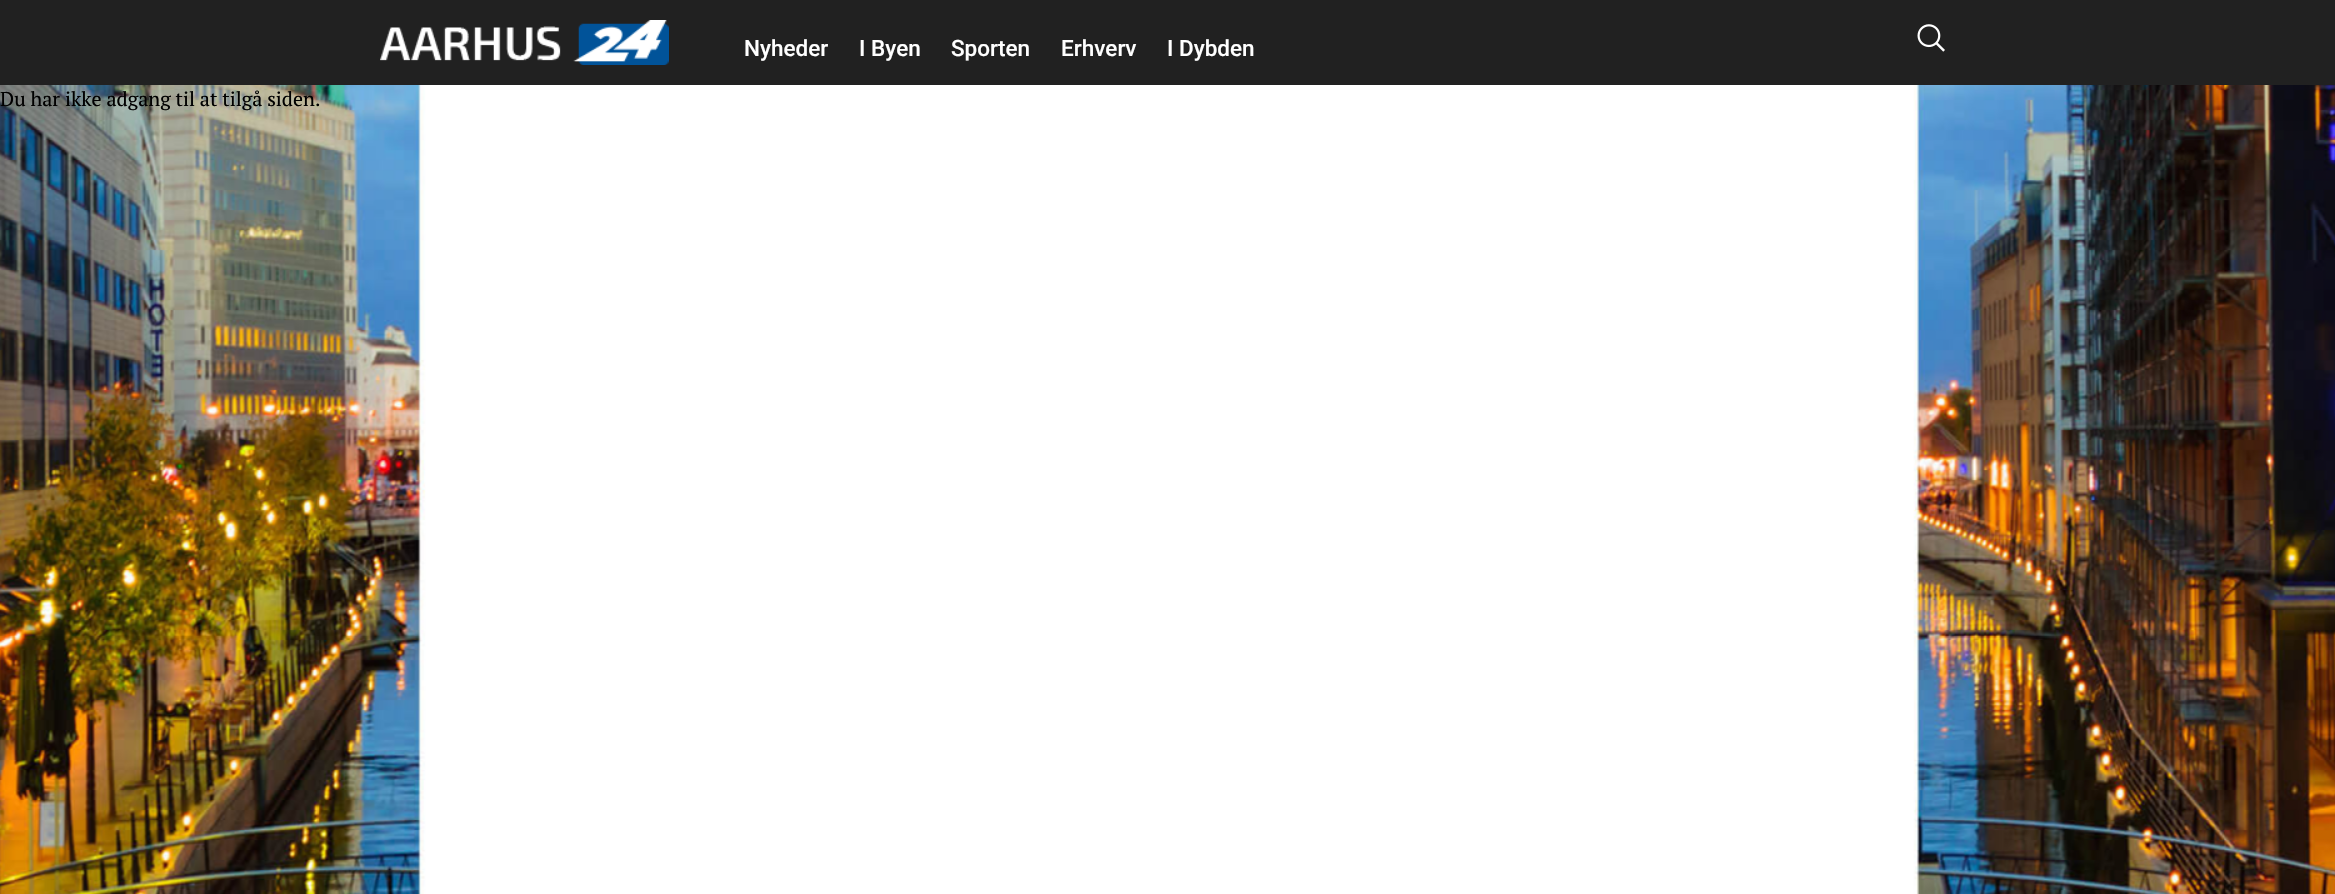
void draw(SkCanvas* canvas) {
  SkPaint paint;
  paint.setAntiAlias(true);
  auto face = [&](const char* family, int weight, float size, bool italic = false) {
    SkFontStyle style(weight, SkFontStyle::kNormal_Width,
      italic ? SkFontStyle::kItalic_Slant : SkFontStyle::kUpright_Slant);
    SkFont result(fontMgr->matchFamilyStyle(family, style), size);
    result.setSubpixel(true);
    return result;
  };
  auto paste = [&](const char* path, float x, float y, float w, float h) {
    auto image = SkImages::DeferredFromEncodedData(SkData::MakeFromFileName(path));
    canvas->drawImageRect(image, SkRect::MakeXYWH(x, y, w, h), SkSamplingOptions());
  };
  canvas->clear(0xffffffff);
  paint.setColor(0xff212121);
  canvas->drawRect(SkRect::MakeXYWH(0, 0, 2335, 85), paint);
  paste("img/1.png", 380, 20, 289, 45);
  paste("img/2.png", 1917, 24, 28, 28);
  paste("img/3.png", 0, 85, 2335, 809);
  auto f0 = face("Roboto", 500, 22.5f);
  paint.setColor(0xffffffff);
  {
    const struct { const char* s; float x, y; } items[] = {
      {"Nyheder", 744, 56},
      {"I Byen", 859, 56},
      {"Sporten", 951, 56},
      {"Erhverv", 1061, 56},
      {"I Dybden", 1167, 56},
    };
    for (auto [s, x, y] : items) {
      canvas->drawString(s, x, y, f0, paint);
    }
  }
  auto f1 = face("PT Serif", 400, 20);
  paint.setColor(0xff000000);
  canvas->drawString("Du har ikke adgang til at tilgå siden.", 0, 106, f1, paint);
}
